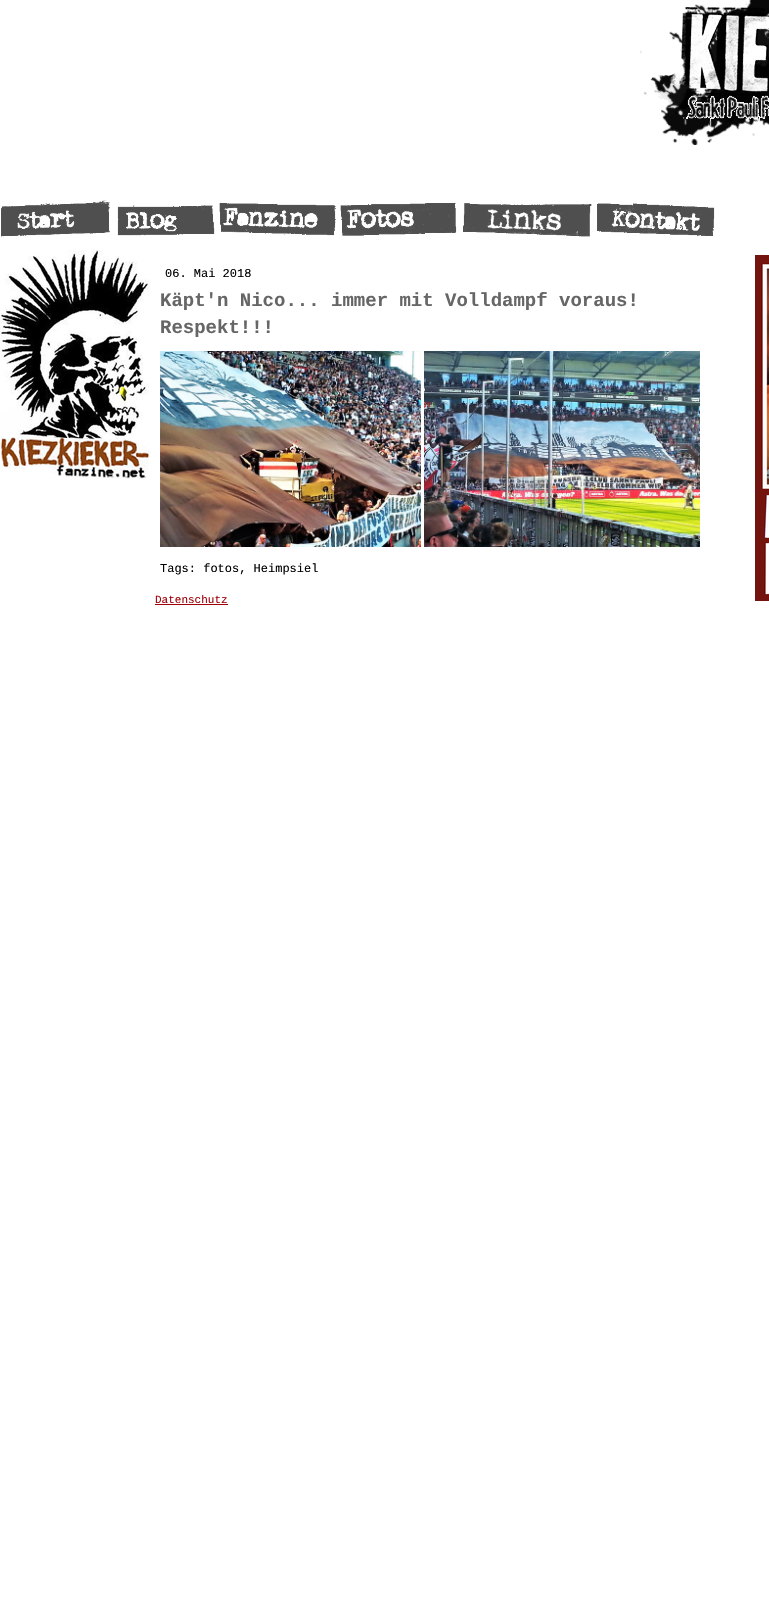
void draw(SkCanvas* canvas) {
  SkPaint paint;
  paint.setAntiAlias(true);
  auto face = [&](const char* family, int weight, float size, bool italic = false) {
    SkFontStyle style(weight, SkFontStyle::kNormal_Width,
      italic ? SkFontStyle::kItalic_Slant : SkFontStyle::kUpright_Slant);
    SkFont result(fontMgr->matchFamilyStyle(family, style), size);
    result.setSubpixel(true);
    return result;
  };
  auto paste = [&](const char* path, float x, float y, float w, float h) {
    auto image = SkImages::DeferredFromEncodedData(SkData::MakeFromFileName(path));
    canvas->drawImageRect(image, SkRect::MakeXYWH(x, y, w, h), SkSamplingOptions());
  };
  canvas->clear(0xffffffff);
  paste("img/1.png", 640, 0, 129, 145);
  paste("img/2.png", 1, 200, 110, 37);
  paste("img/3.png", 117, 205, 98, 31);
  paste("img/4.png", 219, 203, 117, 33);
  paste("img/5.png", 340, 203, 117, 33);
  paste("img/6.png", 463, 203, 129, 34);
  paste("img/7.png", 597, 203, 118, 33);
  paste("img/8.png", 0, 250, 149, 230);
  paste("img/9.png", 160, 351, 261, 196);
  paste("img/10.png", 424, 351, 276, 196);
  paint.setColor(0xff9f0007);
  canvas->drawRect(SkRect::MakeXYWH(155, 604, 73, 1), paint);
  paste("img/11.png", 755, 255, 14, 346);
  auto f0 = face("Liberation Mono", 400, 12);
  paint.setColor(0xff000000);
  canvas->drawString("06. Mai 2018", 165, 277, f0, paint);
  auto f1 = face("Liberation Mono", 700, 19);
  paint.setColor(0xff666666);
  canvas->drawString("Käpt'n Nico... immer mit Volldampf voraus!", 160, 306, f1, paint);
  canvas->drawString("Respekt!!!", 160, 333, f1, paint);
  paint.setColor(0xff000000);
  canvas->drawString("Tags: fotos, Heimpsiel", 160, 572, f0, paint);
  auto f2 = face("Liberation Mono", 400, 11);
  paint.setColor(0xff9f0007);
  canvas->drawString("Datenschutz", 155, 603, f2, paint);
}
